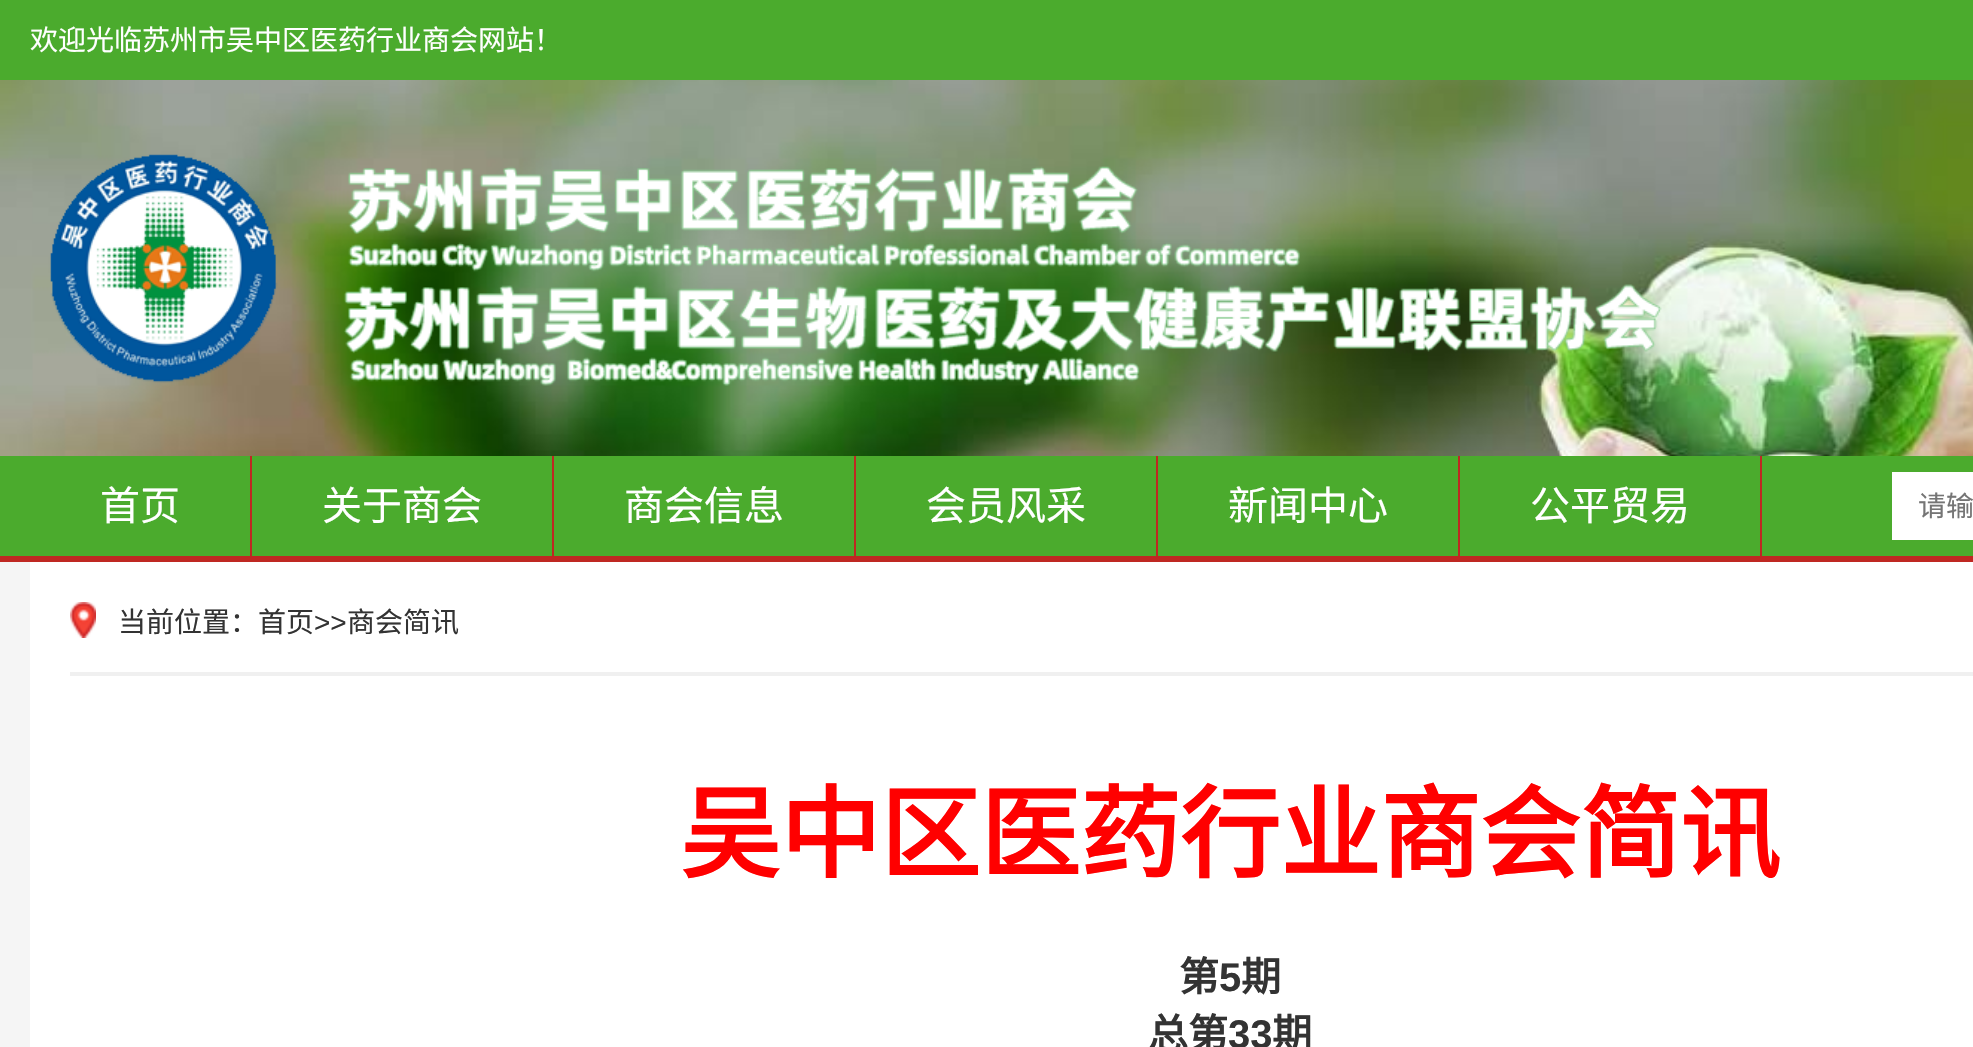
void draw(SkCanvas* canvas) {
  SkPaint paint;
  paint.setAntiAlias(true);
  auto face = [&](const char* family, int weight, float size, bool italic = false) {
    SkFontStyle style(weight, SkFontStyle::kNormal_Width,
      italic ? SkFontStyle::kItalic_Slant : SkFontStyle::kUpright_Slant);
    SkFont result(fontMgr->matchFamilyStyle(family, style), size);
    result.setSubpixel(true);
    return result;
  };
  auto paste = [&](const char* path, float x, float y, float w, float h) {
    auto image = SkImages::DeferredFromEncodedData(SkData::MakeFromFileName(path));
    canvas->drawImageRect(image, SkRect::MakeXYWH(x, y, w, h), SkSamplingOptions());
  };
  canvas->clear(0xfff5f5f5);
  paste("img/1.png", 0, 80, 1973, 376);
  paint.setColor(0xff4bab2d);
  canvas->drawRect(SkRect::MakeXYWH(0, 0, 1973, 80), paint);
  paste("img/2.png", 50, 154, 1612, 232);
  {
    const struct { float x, y, w, h; SkColor color; } items[] = {
      {0, 456, 1973, 100, 0xff4bab2d},
      {0, 556, 1973, 6, 0xffbf2822},
      {250, 456, 2, 100, 0xffbf2822},
      {552, 456, 2, 100, 0xffbf2822},
      {854, 456, 2, 100, 0xffbf2822},
      {1156, 456, 2, 100, 0xffbf2822},
      {1458, 456, 2, 100, 0xffbf2822},
      {1760, 456, 2, 100, 0xffbf2822},
      {1892, 472, 81, 68, 0xffffffff},
      {30, 562, 1943, 485, 0xffffffff},
    };
    for (auto [x, y, w, h, color] : items) {
      paint.setColor(color);
      canvas->drawRect(SkRect::MakeXYWH(x, y, w, h), paint);
    }
  }
  paste("img/3.png", 70, 602, 26, 36);
  paint.setColor(0xfff0f0f0);
  canvas->drawRect(SkRect::MakeXYWH(70, 672, 1903, 4), paint);
  auto f0 = face("Noto Sans CJK SC", 400, 28);
  paint.setColor(0xffffffff);
  canvas->drawString("欢迎光临苏州市吴中区医药行业商会网站！", 30, 50, f0, paint);
  auto f1 = face("Noto Sans CJK SC", 400, 40);
  {
    const struct { const char* s; float x, y; } items[] = {
      {"首页", 100, 520},
      {"关于商会", 322, 520},
      {"商会信息", 624, 520},
      {"会员风采", 926, 520},
      {"新闻中心", 1228, 520},
      {"公平贸易", 1530, 520},
    };
    for (auto [s, x, y] : items) {
      canvas->drawString(s, x, y, f1, paint);
    }
  }
  paint.setColor(0xff757575);
  canvas->drawString("请输", 1918, 516, f0, paint);
  paint.setColor(0xff333333);
  canvas->drawString("当前位置：首页", 118, 632, f0, paint);
  auto f2 = face("Liberation Sans", 400, 28);
  canvas->drawString(">>", 314, 632, f2, paint);
  canvas->drawString("商会简讯", 347, 632, f0, paint);
  auto f3 = face("Noto Sans CJK SC", 700, 100);
  paint.setColor(0xffff0000);
  canvas->drawString("吴中区医药行业商会简讯", 680, 870, f3, paint);
  auto f4 = face("Noto Sans CJK SC", 700, 40);
  paint.setColor(0xff333333);
  canvas->drawString("第", 1179, 991, f4, paint);
  auto f5 = face("Liberation Sans", 700, 40);
  canvas->drawString("5", 1219, 991, f5, paint);
  canvas->drawString("期", 1241, 991, f4, paint);
  canvas->drawString("总第", 1148, 1048, f4, paint);
  canvas->drawString("33", 1228, 1048, f5, paint);
  canvas->drawString("期", 1272, 1048, f4, paint);
}
